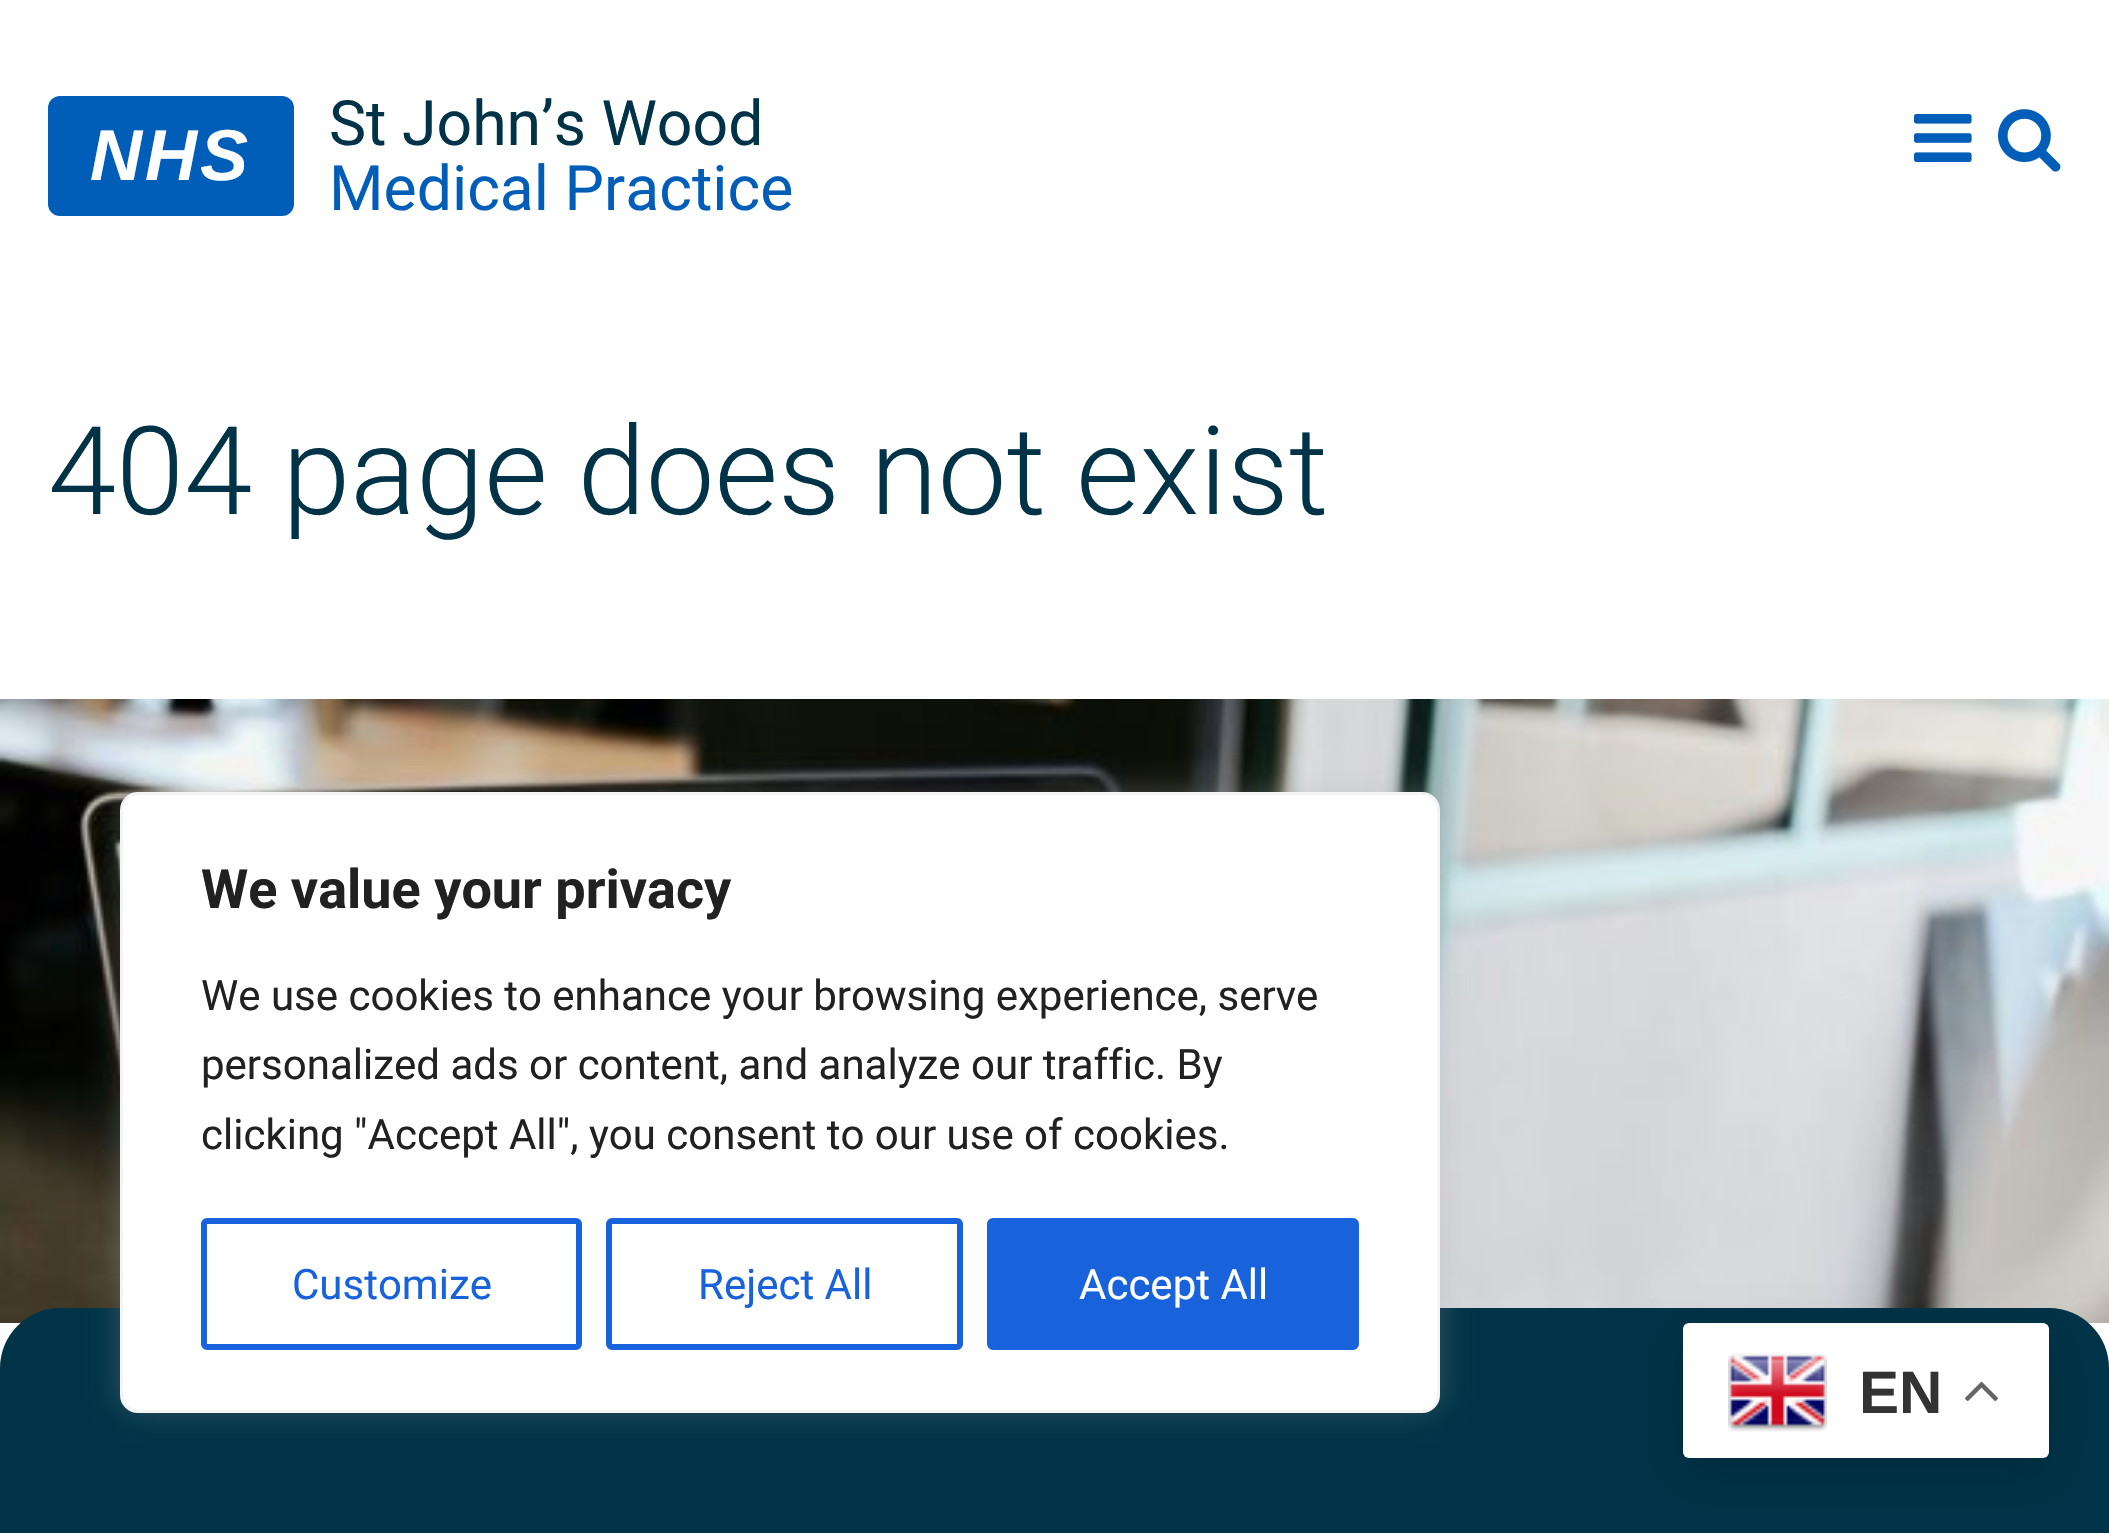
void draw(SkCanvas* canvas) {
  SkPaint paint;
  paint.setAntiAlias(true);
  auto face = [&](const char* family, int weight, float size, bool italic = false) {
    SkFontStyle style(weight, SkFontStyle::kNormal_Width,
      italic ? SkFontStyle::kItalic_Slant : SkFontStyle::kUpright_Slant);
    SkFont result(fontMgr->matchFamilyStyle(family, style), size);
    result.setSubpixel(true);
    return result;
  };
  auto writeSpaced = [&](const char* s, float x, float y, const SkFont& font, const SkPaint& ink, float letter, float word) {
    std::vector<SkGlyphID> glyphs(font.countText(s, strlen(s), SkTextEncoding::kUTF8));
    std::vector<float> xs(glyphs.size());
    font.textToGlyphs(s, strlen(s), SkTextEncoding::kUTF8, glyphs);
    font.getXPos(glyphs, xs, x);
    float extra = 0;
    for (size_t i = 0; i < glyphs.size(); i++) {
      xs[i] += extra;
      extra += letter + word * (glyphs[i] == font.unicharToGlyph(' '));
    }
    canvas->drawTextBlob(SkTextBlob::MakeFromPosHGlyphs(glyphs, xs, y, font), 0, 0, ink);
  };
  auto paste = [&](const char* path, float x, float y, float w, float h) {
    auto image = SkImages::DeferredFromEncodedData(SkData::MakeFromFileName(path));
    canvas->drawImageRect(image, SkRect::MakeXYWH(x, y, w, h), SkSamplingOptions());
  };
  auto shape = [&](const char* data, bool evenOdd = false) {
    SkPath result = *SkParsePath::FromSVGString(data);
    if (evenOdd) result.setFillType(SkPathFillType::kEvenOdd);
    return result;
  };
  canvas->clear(0xffffffff);
  paint.setColor(0xff005eb8);
  canvas->drawRoundRect(SkRect::MakeXYWH(48, 96, 246, 120), 12, 12, paint);
  paste("img/1.png", 1914, 114, 58, 48);
  paste("img/2.png", 1998, 109, 63, 63);
  paste("img/3.png", 0, 699, 2109, 624);
  paint.setColor(0xff003347);
  canvas->drawPath(shape("M60 1308H2049C2082 1308 2109 1335 2109 1368V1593H0V1368C0 1335 27 1308 60 1308Z"), paint);
  paint.setColor(0x4dacabab);
  paint.setMaskFilter(SkMaskFilter::MakeBlur(kNormal_SkBlurStyle, 15));
  canvas->drawRoundRect(SkRect::MakeXYWH(120, 789, 1320, 621), 18, 18, paint);
  paint.setMaskFilter(nullptr);
  paint.setColor(0xffffffff);
  canvas->drawRoundRect(SkRect::MakeXYWH(121.5f, 793.5f, 1317, 618), 16.5f, 16.5f, paint);
  paint.setStroke(true);
  paint.setStrokeWidth(3);
  paint.setColor(0xfff4f4f4);
  canvas->drawRoundRect(SkRect::MakeXYWH(121.5f, 793.5f, 1317, 618), 16.5f, 16.5f, paint);
  paint.setStrokeWidth(6);
  paint.setColor(0xff1863dc);
  canvas->drawRoundRect(SkRect::MakeXYWH(204, 1221, 375, 126), 3, 3, paint);
  canvas->drawRoundRect(SkRect::MakeXYWH(609, 1221, 351, 126), 3, 3, paint);
  paint.setStroke(false);
  canvas->drawRoundRect(SkRect::MakeXYWH(990, 1221, 366, 126), 3, 3, paint);
  paint.setStroke(true);
  canvas->drawRoundRect(SkRect::MakeXYWH(990, 1221, 366, 126), 3, 3, paint);
  paint.setStroke(false);
  paint.setColor(0x26000000);
  paint.setMaskFilter(SkMaskFilter::MakeBlur(kNormal_SkBlurStyle, 22.5f));
  canvas->drawRoundRect(SkRect::MakeXYWH(1683, 1338, 366, 135), 6, 6, paint);
  paint.setMaskFilter(nullptr);
  paint.setColor(0xffffffff);
  canvas->drawRoundRect(SkRect::MakeXYWH(1683, 1323, 366, 135), 6, 6, paint);
  paste("img/4.png", 1728, 1353, 99, 79);
  paste("img/5.png", 1965, 1381, 33, 20);
  auto f0 = face("Liberation Sans", 700, 72, true);
  writeSpaced("NHS", 90, 180, f0, paint, 3, 0);
  auto f1 = face("Roboto", 400, 62.5f);
  paint.setColor(0xff003347);
  canvas->drawString("St John’s Wood", 329, 145, f1, paint);
  paint.setColor(0xff005eb8);
  canvas->drawString("Medical Practice", 329, 210, f1, paint);
  auto f2 = face("Roboto", 300, 122.75f);
  paint.setColor(0xff003347);
  canvas->drawString("404 page does not exist", 48, 514, f2, paint);
  auto f3 = face("Roboto", 700, 54);
  paint.setColor(0xff212121);
  canvas->drawString("We value your privacy", 201, 908, f3, paint);
  auto f4 = face("Roboto", 400, 42);
  {
    const struct { const char* s; float x, y; } items[] = {
      {"We use cookies to enhance your browsing experience, serve", 201, 1010},
      {"personalized ads or content, and analyze our traffic. By", 201, 1079},
      {"clicking \"Accept All\", you consent to our use of cookies.", 201, 1149},
    };
    for (auto [s, x, y] : items) {
      canvas->drawString(s, x, y, f4, paint);
    }
  }
  paint.setColor(0xff1863dc);
  canvas->drawString("Customize", 292, 1299, f4, paint);
  canvas->drawString("Reject All", 698, 1299, f4, paint);
  paint.setColor(0xffffffff);
  canvas->drawString("Accept All", 1079, 1299, f4, paint);
  auto f5 = face("Liberation Sans", 700, 60);
  paint.setColor(0xff333333);
  canvas->drawString("EN", 1859, 1413, f5, paint);
}
